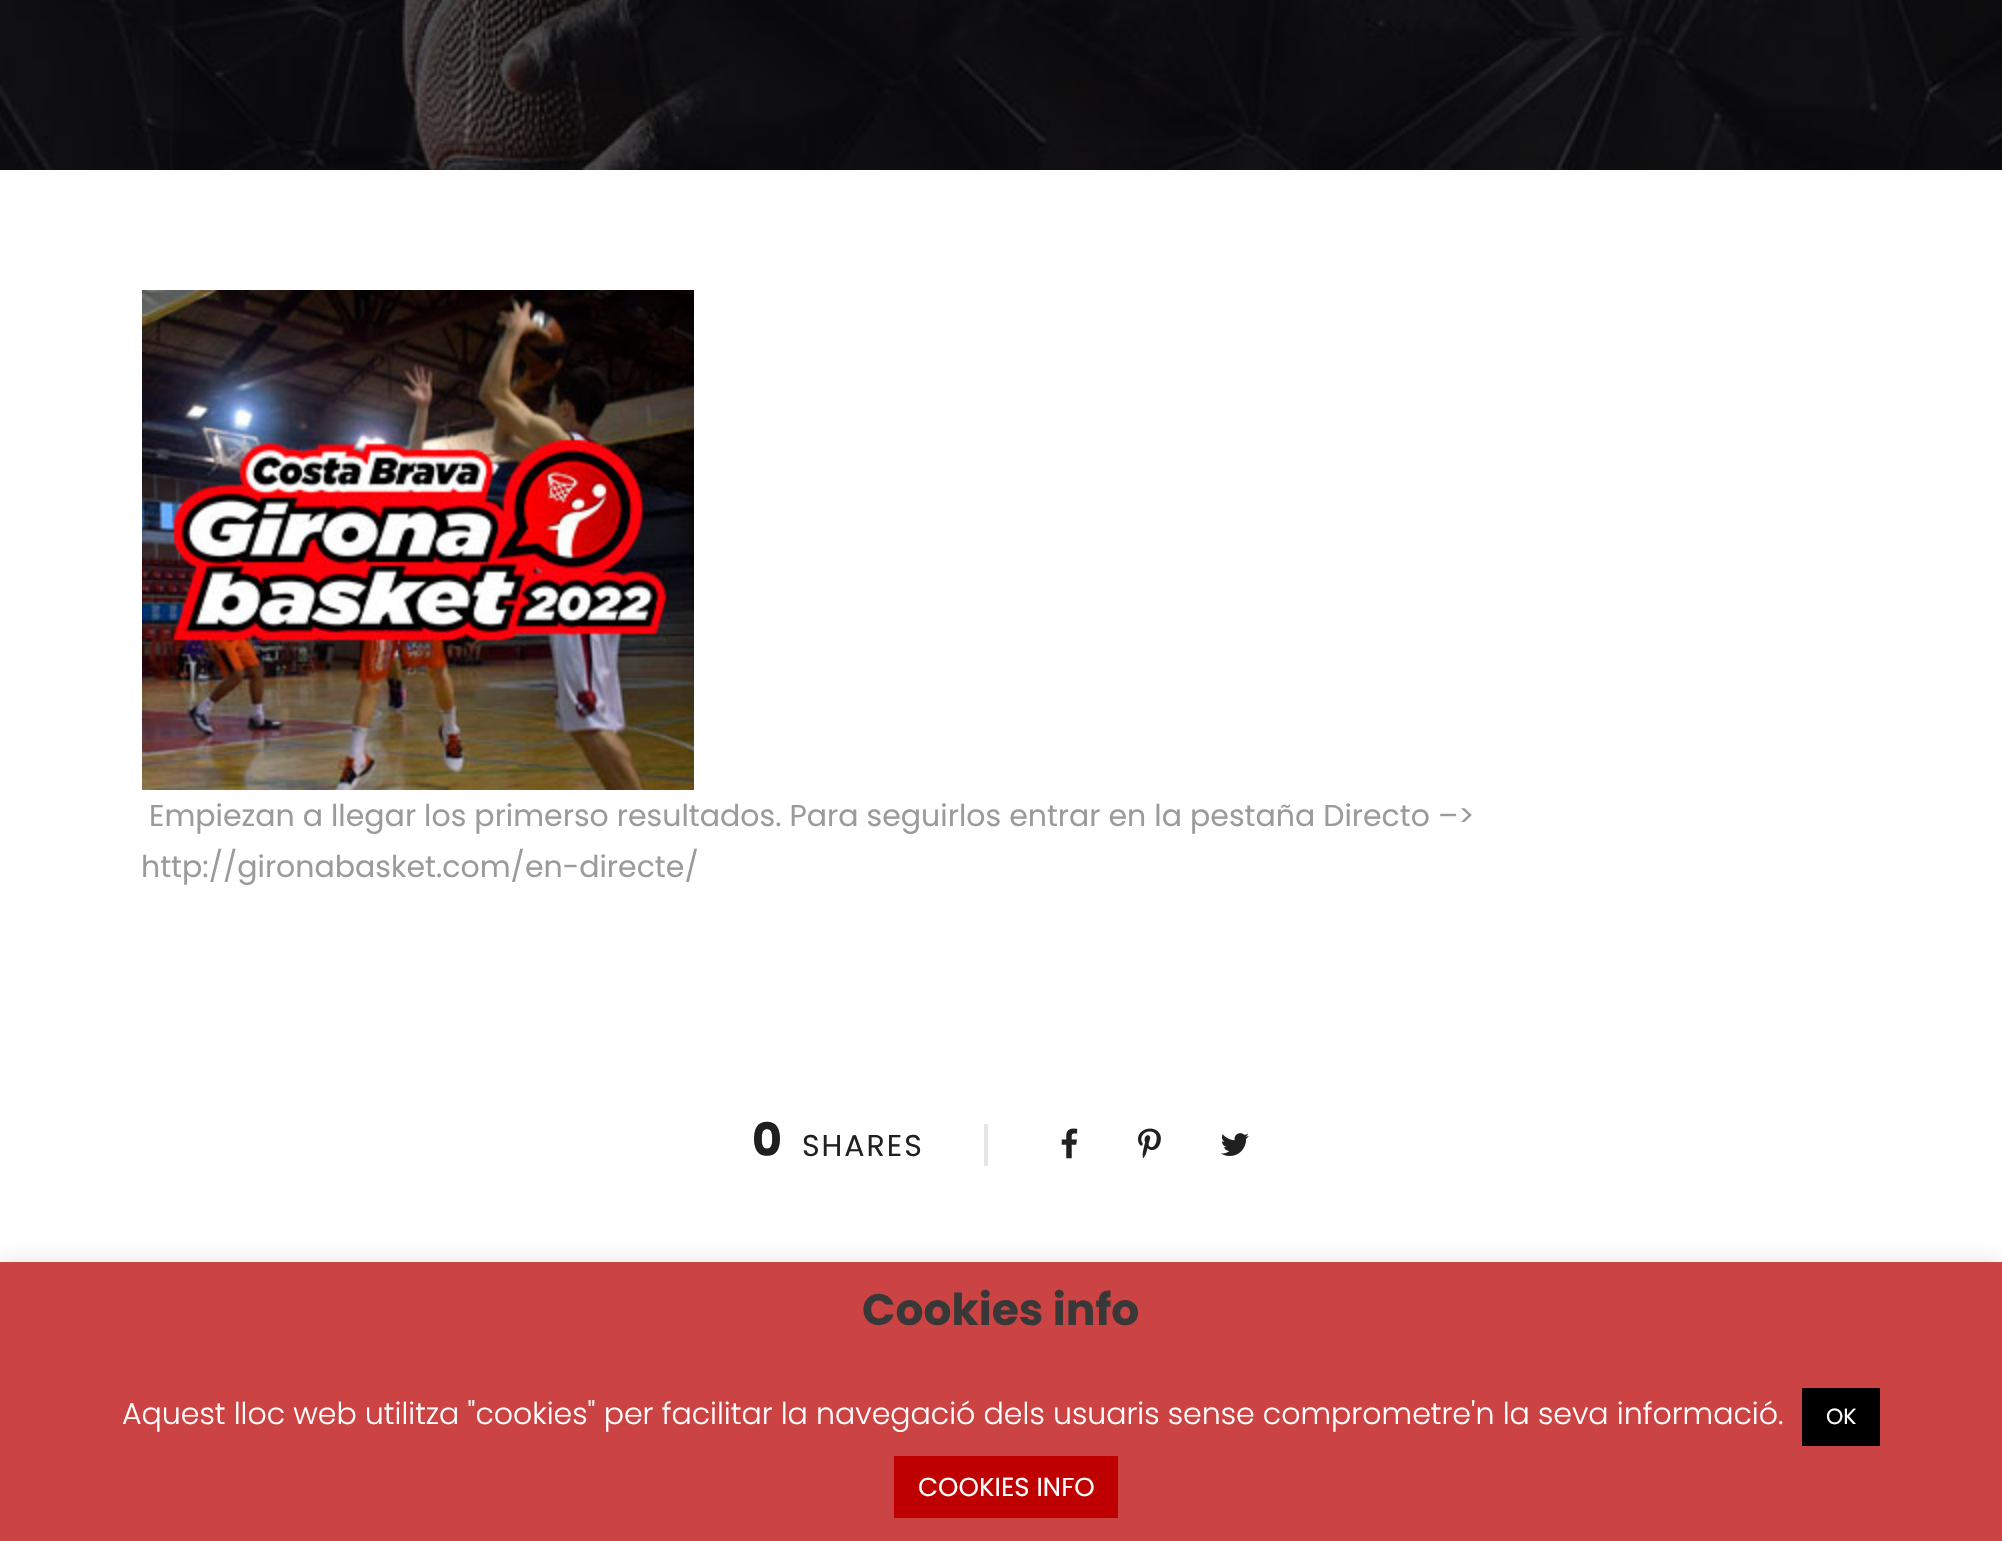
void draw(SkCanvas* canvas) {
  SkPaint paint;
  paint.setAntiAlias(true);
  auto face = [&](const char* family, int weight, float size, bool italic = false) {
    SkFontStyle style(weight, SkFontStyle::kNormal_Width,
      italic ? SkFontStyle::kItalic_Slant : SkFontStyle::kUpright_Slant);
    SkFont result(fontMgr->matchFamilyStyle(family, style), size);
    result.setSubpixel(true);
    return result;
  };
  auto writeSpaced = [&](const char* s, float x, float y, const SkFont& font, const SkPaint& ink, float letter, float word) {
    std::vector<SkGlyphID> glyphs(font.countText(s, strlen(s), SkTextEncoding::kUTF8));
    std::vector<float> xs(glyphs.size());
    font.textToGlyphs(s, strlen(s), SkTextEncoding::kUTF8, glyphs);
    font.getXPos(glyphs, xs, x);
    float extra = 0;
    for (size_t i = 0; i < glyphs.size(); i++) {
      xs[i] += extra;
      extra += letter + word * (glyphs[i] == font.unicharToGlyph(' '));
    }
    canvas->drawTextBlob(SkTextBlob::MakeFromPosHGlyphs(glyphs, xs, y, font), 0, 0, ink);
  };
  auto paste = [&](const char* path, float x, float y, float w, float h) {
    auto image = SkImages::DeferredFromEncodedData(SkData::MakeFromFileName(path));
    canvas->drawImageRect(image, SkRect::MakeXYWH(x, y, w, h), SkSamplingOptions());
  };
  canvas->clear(0xffffffff);
  paste("img/1.png", 0, 0, 2002, 170);
  paste("img/2.png", 142, 290, 552, 500);
  paint.setColor(0xffe5e5e5);
  canvas->drawRect(SkRect::MakeXYWH(984, 1124, 4, 42), paint);
  paste("img/3.png", 1061, 1128, 17, 31);
  paste("img/4.png", 1138, 1128, 23, 31);
  paste("img/5.png", 1221, 1133, 28, 23);
  paint.setColor(0x4dacabab);
  paint.setMaskFilter(SkMaskFilter::MakeBlur(kNormal_SkBlurStyle, 10));
  canvas->drawRect(SkRect::MakeXYWH(0, 1260, 2002, 280), paint);
  paint.setMaskFilter(nullptr);
  {
    const struct { float x, y, w, h; SkColor color; } items[] = {
      {0, 1262, 2002, 279, 0xffcc4343},
      {1802, 1388, 78, 58, 0xff000000},
      {894, 1456, 224, 62, 0xffbf0000},
    };
    for (auto [x, y, w, h, color] : items) {
      paint.setColor(color);
      canvas->drawRect(SkRect::MakeXYWH(x, y, w, h), paint);
    }
  }
  auto f0 = face("Poppins", 400, 30);
  paint.setColor(0xff9b9b9b);
  canvas->drawString("Empiezan a llegar los primerso resultados. Para seguirlos entrar en la pestaña Directo –>", 149, 826, f0, paint);
  canvas->drawString("http://gironabasket.com/en-directe/", 141, 877, f0, paint);
  auto f1 = face("Poppins", 700, 46);
  paint.setColor(0xff202020);
  canvas->drawString("0", 752, 1156, f1, paint);
  writeSpaced("SHARES", 802, 1156, f0, paint, 2, 0);
  auto f2 = face("Poppins", 700, 44);
  paint.setColor(0xff383838);
  canvas->drawString("Cookies info", 862, 1325, f2, paint);
  auto f3 = face("Poppins", 300, 30);
  paint.setColor(0xffffffff);
  canvas->drawString("Aquest lloc web utilitza \"cookies\" per facilitar la navegació dels usuaris sense comprometre'n la seva informació.", 122, 1424, f3, paint);
  auto f4 = face("Poppins", 400, 22);
  canvas->drawString("OK", 1826, 1424, f4, paint);
  auto f5 = face("Poppins", 400, 26);
  canvas->drawString("COOKIES INFO", 918, 1496, f5, paint);
}
